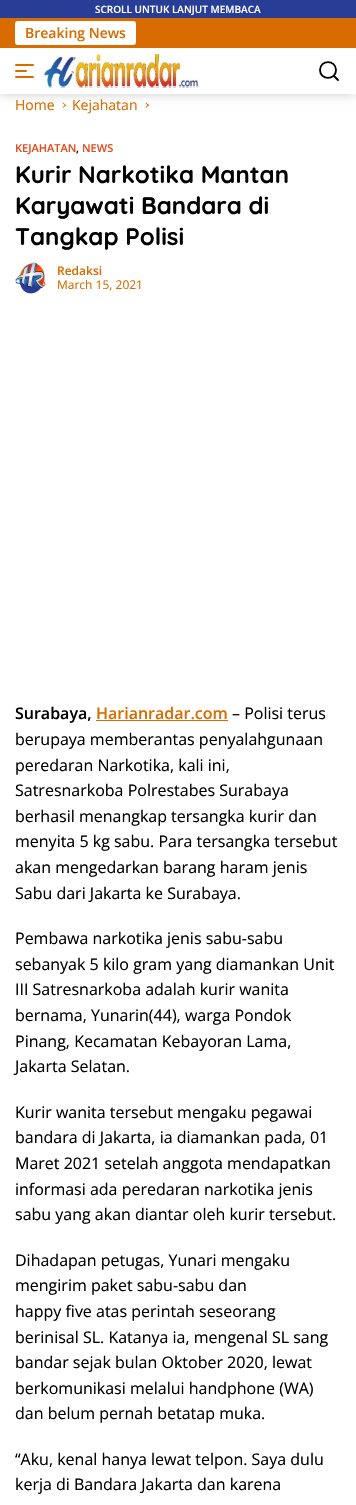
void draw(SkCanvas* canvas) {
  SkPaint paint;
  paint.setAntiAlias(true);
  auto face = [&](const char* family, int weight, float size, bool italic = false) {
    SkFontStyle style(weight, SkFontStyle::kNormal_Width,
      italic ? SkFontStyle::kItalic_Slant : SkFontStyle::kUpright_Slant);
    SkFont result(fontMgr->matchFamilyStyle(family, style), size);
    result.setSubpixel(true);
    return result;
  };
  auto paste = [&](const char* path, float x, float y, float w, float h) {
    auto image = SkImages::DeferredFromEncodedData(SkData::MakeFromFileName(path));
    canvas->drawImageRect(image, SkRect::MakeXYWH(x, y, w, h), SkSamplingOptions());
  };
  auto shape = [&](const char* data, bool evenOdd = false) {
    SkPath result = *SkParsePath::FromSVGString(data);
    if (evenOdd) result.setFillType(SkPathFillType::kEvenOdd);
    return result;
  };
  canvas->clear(0xffffffff);
  paint.setColor(0xffd86c00);
  canvas->drawPath(shape("M62.5 103L63 102.5L66 105.5L65.5 106Z"), paint);
  canvas->drawPath(shape("M62.5 107.5L65.5 104.5L66 105.5L63 108Z"), paint);
  canvas->drawPath(shape("M145.5 103L146 102.5L149 105L148 106Z"), paint);
  canvas->drawPath(shape("M145.5 107.5L148 104.5L149 105L146 108Z"), paint);
  paint.setColor(0x33000000);
  paint.setMaskFilter(SkMaskFilter::MakeBlur(kNormal_SkBlurStyle, 5));
  canvas->drawRect(SkRect::MakeXYWH(0, 0, 356, 94), paint);
  paint.setMaskFilter(nullptr);
  {
    const struct { float x, y, w, h; SkColor color; } items[] = {
      {0, 48, 356, 46, 0xffffffff},
      {0, 0, 356, 18, 0xff283d96},
      {0, 18, 356, 30, 0xffd86c00},
    };
    for (auto [x, y, w, h, color] : items) {
      paint.setColor(color);
      canvas->drawRect(SkRect::MakeXYWH(x, y, w, h), paint);
    }
  }
  paint.setColor(0xffffffff);
  canvas->drawRoundRect(SkRect::MakeXYWH(15, 21, 121, 24), 3, 3, paint);
  paint.setColor(0xffd86c00);
  canvas->drawRoundRect(SkRect::MakeXYWH(15, 64, 19, 2), 1, 1, paint);
  canvas->drawRoundRect(SkRect::MakeXYWH(15, 70, 12, 2), 1, 1, paint);
  canvas->drawRoundRect(SkRect::MakeXYWH(15, 76, 19, 2), 1, 1, paint);
  paste("img/1.png", 42, 54, 158, 34);
  paint.setStroke(true);
  paint.setStrokeWidth(1.9f);
  paint.setStrokeCap(SkPaint::kRound_Cap);
  paint.setColor(0xff000000);
  canvas->drawPath(shape("M338 80L334 76M336 70C336 80.5 320 80.5 320 70C320 59.5 336 59.5 336 70Z"), paint);
  paste("img/2.png", 15, 262, 31, 32);
  paint.setStroke(false);
  paint.setColor(0xffd86c00);
  canvas->drawRect(SkRect::MakeXYWH(96, 720, 132, 1), paint);
  auto f0 = face("Open Sans", 600, 10);
  paint.setColor(0xffffffff);
  canvas->drawString("SCROLL UNTUK LANJUT MEMBACA", 95, 13, f0, paint);
  auto f1 = face("Open Sans", 600, 14);
  paint.setColor(0xffd86c00);
  canvas->drawString("Breaking News", 25, 38, f1, paint);
  auto f2 = face("Open Sans", 400, 14);
  canvas->drawString("Home", 15, 110, f2, paint);
  canvas->drawString("Kejahatan", 72, 110, f2, paint);
  auto f3 = face("Open Sans", 600, 11);
  paint.setColor(0xffe74b1b);
  canvas->drawString("KEJAHATAN", 15, 152, f3, paint);
  paint.setColor(0xff000000);
  canvas->drawString(",", 76, 152, f3, paint);
  paint.setColor(0xffe74b1b);
  canvas->drawString("NEWS", 82, 152, f3, paint);
  auto f4 = face("Quicksand", 700, 24);
  paint.setColor(0xff000000);
  {
    const struct { const char* s; float x, y; } items[] = {
      {"Kurir Narkotika Mantan", 15, 183},
      {"Karyawati Bandara di", 15, 214},
      {"Tangkap Polisi", 15, 245},
    };
    for (auto [s, x, y] : items) {
      canvas->drawString(s, x, y, f4, paint);
    }
  }
  auto f5 = face("Open Sans", 600, 12);
  paint.setColor(0xffd86c00);
  canvas->drawString("Redaksi", 57, 275, f5, paint);
  auto f6 = face("Open Sans", 400, 12);
  canvas->drawString("March 15, 2021", 57, 289, f6, paint);
  auto f7 = face("Open Sans", 600, 16);
  paint.setColor(0xff000000);
  canvas->drawString("Surabaya,", 15, 719, f7, paint);
  paint.setColor(0xffd86c00);
  canvas->drawString("Harianradar.com", 96, 719, f7, paint);
  auto f8 = face("Open Sans", 400, 16);
  paint.setColor(0xff000000);
  {
    const struct { const char* s; float x, y; } items[] = {
      {"– Polisi terus", 232, 719},
      {"berupaya memberantas penyalahgunaan", 15, 745},
      {"peredaran Narkotika, kali ini,", 15, 771},
      {"Satresnarkoba Polrestabes Surabaya", 15, 796},
      {"berhasil menangkap tersangka kurir dan", 15, 822},
      {"menyita 5 kg sabu. Para tersangka tersebut", 15, 847},
      {"akan mengedarkan barang haram jenis", 15, 873},
      {"Sabu dari Jakarta ke Surabaya.", 15, 899},
      {"Pembawa narkotika jenis sabu-sabu", 15, 944},
      {"sebanyak 5 kilo gram yang diamankan Unit", 15, 970},
      {"III Satresnarkoba adalah kurir wanita", 15, 995},
      {"bernama, Yunarin(44), warga Pondok", 15, 1021},
      {"Pinang, Kecamatan Kebayoran Lama,", 15, 1047},
      {"Jakarta Selatan.", 15, 1072},
      {"Kurir wanita tersebut mengaku pegawai", 15, 1118},
      {"bandara di Jakarta, ia diamankan pada, 01", 15, 1143},
      {"Maret 2021 setelah anggota mendapatkan", 15, 1169},
      {"informasi ada peredaran narkotika jenis", 15, 1195},
      {"sabu yang akan diantar oleh kurir tersebut.", 15, 1220},
      {"Dihadapan petugas, Yunari mengaku", 15, 1266},
      {"mengirim paket sabu-sabu dan", 15, 1291},
      {"happy five atas perintah seseorang", 15, 1317},
      {"berinisal SL. Katanya ia, mengenal SL sang", 15, 1343},
      {"bandar sejak bulan Oktober 2020, lewat", 15, 1368},
      {"berkomunikasi melalui handphone (WA)", 15, 1394},
      {"dan belum pernah betatap muka.", 15, 1419},
      {"“Aku, kenal hanya lewat telpon. Saya dulu", 15, 1465},
      {"kerja di Bandara Jakarta dan karena", 15, 1490},
    };
    for (auto [s, x, y] : items) {
      canvas->drawString(s, x, y, f8, paint);
    }
  }
}
